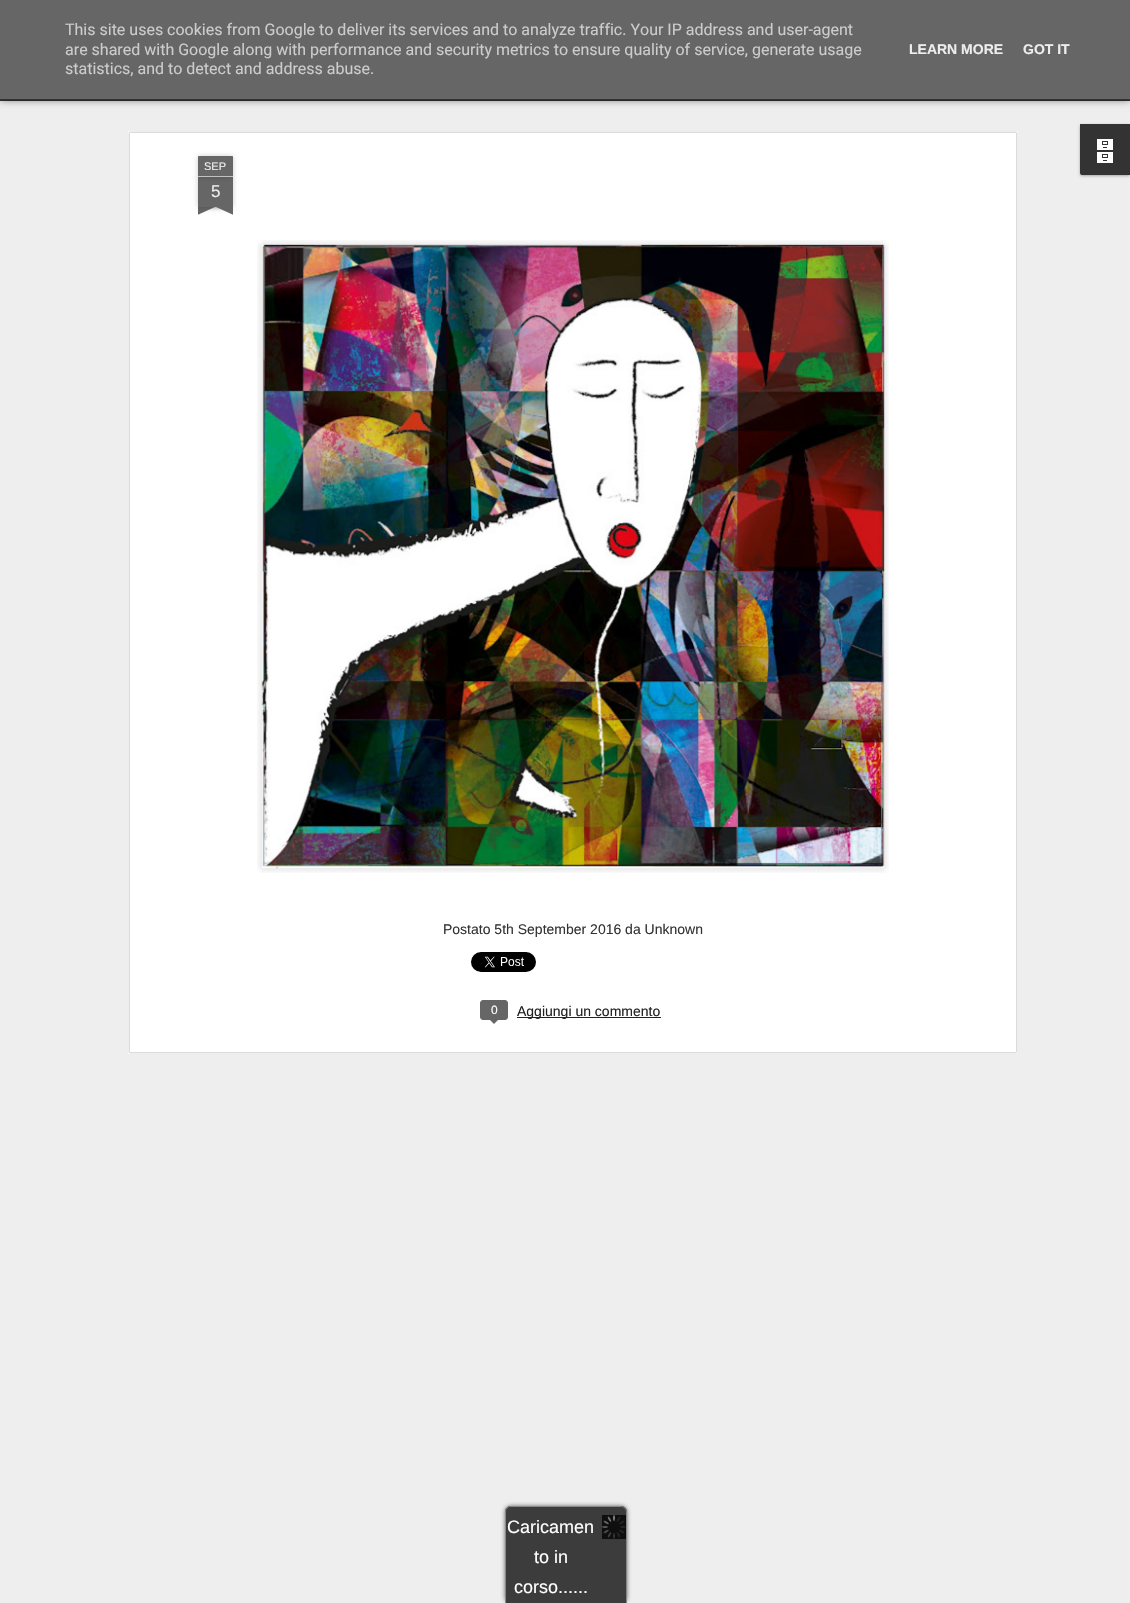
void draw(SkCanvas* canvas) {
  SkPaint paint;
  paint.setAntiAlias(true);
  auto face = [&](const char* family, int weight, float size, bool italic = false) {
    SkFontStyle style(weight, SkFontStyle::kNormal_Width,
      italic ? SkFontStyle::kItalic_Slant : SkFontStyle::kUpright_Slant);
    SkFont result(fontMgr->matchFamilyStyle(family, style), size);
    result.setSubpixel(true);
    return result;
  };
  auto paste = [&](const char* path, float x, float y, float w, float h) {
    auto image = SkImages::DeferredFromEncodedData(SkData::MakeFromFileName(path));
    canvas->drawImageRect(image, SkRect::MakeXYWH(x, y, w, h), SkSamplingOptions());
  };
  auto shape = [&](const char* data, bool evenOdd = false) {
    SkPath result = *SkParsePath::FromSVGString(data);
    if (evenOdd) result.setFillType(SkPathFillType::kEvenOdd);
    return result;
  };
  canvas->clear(0xff333333);
  paint.setColor(0xffeeeeee);
  canvas->drawRect(SkRect::MakeXYWH(0, 101, 1130, 1502), paint);
  paint.setColor(0x80000000);
  paint.setMaskFilter(SkMaskFilter::MakeBlur(kNormal_SkBlurStyle, 4));
  canvas->drawRect(SkRect::MakeXYWH(0, 65, 1130, 35), paint);
  paint.setMaskFilter(nullptr);
  paint.setColor(0xff666666);
  canvas->drawRect(SkRect::MakeXYWH(0, 0, 1130, 99), paint);
  paint.setColor(0xff333333);
  canvas->drawRect(SkRect::MakeXYWH(0, 99, 1130, 1), paint);
  paint.setColor(0x4d000000);
  paint.setMaskFilter(SkMaskFilter::MakeBlur(kNormal_SkBlurStyle, 1.5f));
  canvas->drawRoundRect(SkRect::MakeXYWH(1080, 125, 50, 51), 2, 2, paint);
  paint.setMaskFilter(nullptr);
  paint.setColor(0xff333333);
  canvas->drawPath(shape("M1080 124H1130V175H1082C1081 175 1080 174 1080 173Z"), paint);
  paste("img/1.png", 1097, 139, 16, 24);
  paint.setColor(0xffffffff);
  canvas->drawRect(SkRect::MakeXYWH(128, 131, 890, 923), paint);
  paste("img/2.png", 128, 131, 890, 923);
  paint.setColor(0x33000000);
  paint.setMaskFilter(SkMaskFilter::MakeBlur(kNormal_SkBlurStyle, 2.5f));
  canvas->drawRect(SkRect::MakeXYWH(198, 177, 35, 30), paint);
  paint.setMaskFilter(nullptr);
  paint.setColor(0xff666666);
  canvas->drawRect(SkRect::MakeXYWH(198, 177, 35, 30), paint);
  paint.setColor(0x33000000);
  paint.setMaskFilter(SkMaskFilter::MakeBlur(kNormal_SkBlurStyle, 2.5f));
  canvas->drawRoundRect(SkRect::MakeXYWH(198, 156, 35, 21), 1, 1, paint);
  paint.setMaskFilter(nullptr);
  paint.setColor(0xff666666);
  canvas->drawPath(shape("M199 156H232C232.5 156 233 156.5 233 157V177H198V157C198 156.5 198.5 156 199 156Z"), paint);
  paint.setColor(0xffc2c2c2);
  canvas->drawRect(SkRect::MakeXYWH(198, 176, 35, 1), paint);
  canvas->save();
  canvas->clipRect(SkRect::MakeXYWH(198, 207, 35, 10));
  paint.setColor(0x33000000);
  paint.setMaskFilter(SkMaskFilter::MakeBlur(kNormal_SkBlurStyle, 2.5f));
  canvas->drawRect(SkRect::MakeXYWH(189, 197, 50, 10), paint);
  paint.setMaskFilter(nullptr);
  canvas->restore();
  canvas->save();
  canvas->clipRect(SkRect::MakeXYWH(198, 207, 35, 10));
  paint.setColor(0xff666666);
  canvas->drawPath(shape("M189 208L235 187L239 196L193 217Z"), paint);
  canvas->restore();
  canvas->save();
  canvas->clipRect(SkRect::MakeXYWH(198, 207, 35, 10));
  paint.setColor(0x33000000);
  paint.setMaskFilter(SkMaskFilter::MakeBlur(kNormal_SkBlurStyle, 2.5f));
  canvas->drawRect(SkRect::MakeXYWH(192, 197, 50, 10), paint);
  paint.setMaskFilter(nullptr);
  canvas->restore();
  canvas->save();
  canvas->clipRect(SkRect::MakeXYWH(198, 207, 35, 10));
  paint.setColor(0xff666666);
  canvas->drawPath(shape("M196 187L242 208L238 217L192 196Z"), paint);
  canvas->restore();
  paste("img/3.png", 257, 240, 632, 633);
  paste("img/4.png", 261, 244, 624, 625);
  paste("img/5.png", 471, 952, 65, 20);
  canvas->drawRoundRect(SkRect::MakeXYWH(480.5f, 1000.5f, 27, 19), 2.5f, 2.5f, paint);
  paint.setStroke(true);
  paint.setStrokeWidth(1);
  canvas->drawRoundRect(SkRect::MakeXYWH(480.5f, 1000.5f, 27, 19), 2.5f, 2.5f, paint);
  paint.setStroke(false);
  canvas->drawPath(shape("M489 1019H499L494 1024Z"), paint);
  paint.setColor(0xff222222);
  canvas->drawRect(SkRect::MakeXYWH(517, 1017, 144, 1), paint);
  paint.setColor(0xff626262);
  paint.setMaskFilter(SkMaskFilter::MakeBlur(kNormal_SkBlurStyle, 2));
  canvas->drawRoundRect(SkRect::MakeXYWH(505, 1506, 122, 97), 6, 6, paint);
  paint.setMaskFilter(nullptr);
  paint.setColor(0xff3c3c3c);
  canvas->drawPath(shape("M511 1506H621C624.5 1506 627 1508.5 627 1512V1603H505V1512C505 1508.5 507.5 1506 511 1506Z"), paint);
  paint.setColor(0xff888888);
  canvas->drawPath(shape("M511 1506H621C624 1506 627 1509 627 1512V1603H505V1512C505 1509 508 1506 511 1506ZM511 1507H621C624 1507 626 1509 626 1512V1603H506V1512C506 1509 508 1507 511 1507Z", true), paint);
  paste("img/6.png", 602, 1515, 24, 24);
  auto f0 = face("Roboto", 400, 16);
  paint.setColor(0xffcccccc);
  {
    const struct { const char* s; float x, y; } items[] = {
      {"This site uses cookies from Google to deliver its services and to analyze traffic. Your IP address and user-agent", 65, 35},
      {"are shared with Google along with performance and security metrics to ensure quality of service, generate usage", 65, 55},
      {"statistics, and to detect and address abuse.", 65, 74},
    };
    for (auto [s, x, y] : items) {
      canvas->drawString(s, x, y, f0, paint);
    }
  }
  auto f1 = face("Liberation Sans", 700, 14);
  paint.setColor(0xffeeeeee);
  canvas->drawString("LEARN MORE", 909, 54, f1, paint);
  canvas->drawString("GOT IT", 1023, 54, f1, paint);
  auto f2 = face("Liberation Sans", 400, 11);
  canvas->drawString("SEP", 204, 170, f2, paint);
  auto f3 = face("Liberation Sans", 400, 17);
  canvas->drawString("5", 211, 197, f3, paint);
  auto f4 = face("Liberation Sans", 400, 14);
  paint.setColor(0xff333333);
  canvas->drawString("Postato 5th September 2016 da Unknown", 443, 934, f4, paint);
  auto f5 = face("Liberation Sans", 400, 12);
  paint.setColor(0xffffffff);
  canvas->drawString("0", 491, 1014, f5, paint);
  paint.setColor(0xff222222);
  canvas->drawString("Aggiungi un commento", 517, 1016, f4, paint);
  auto f6 = face("Liberation Sans", 400, 18);
  paint.setColor(0xffffffff);
  {
    const struct { const char* s; float x, y; } items[] = {
      {"Caricamen", 507, 1533},
      {"to in", 534, 1563},
      {"corso......", 514, 1593},
    };
    for (auto [s, x, y] : items) {
      canvas->drawString(s, x, y, f6, paint);
    }
  }
}
